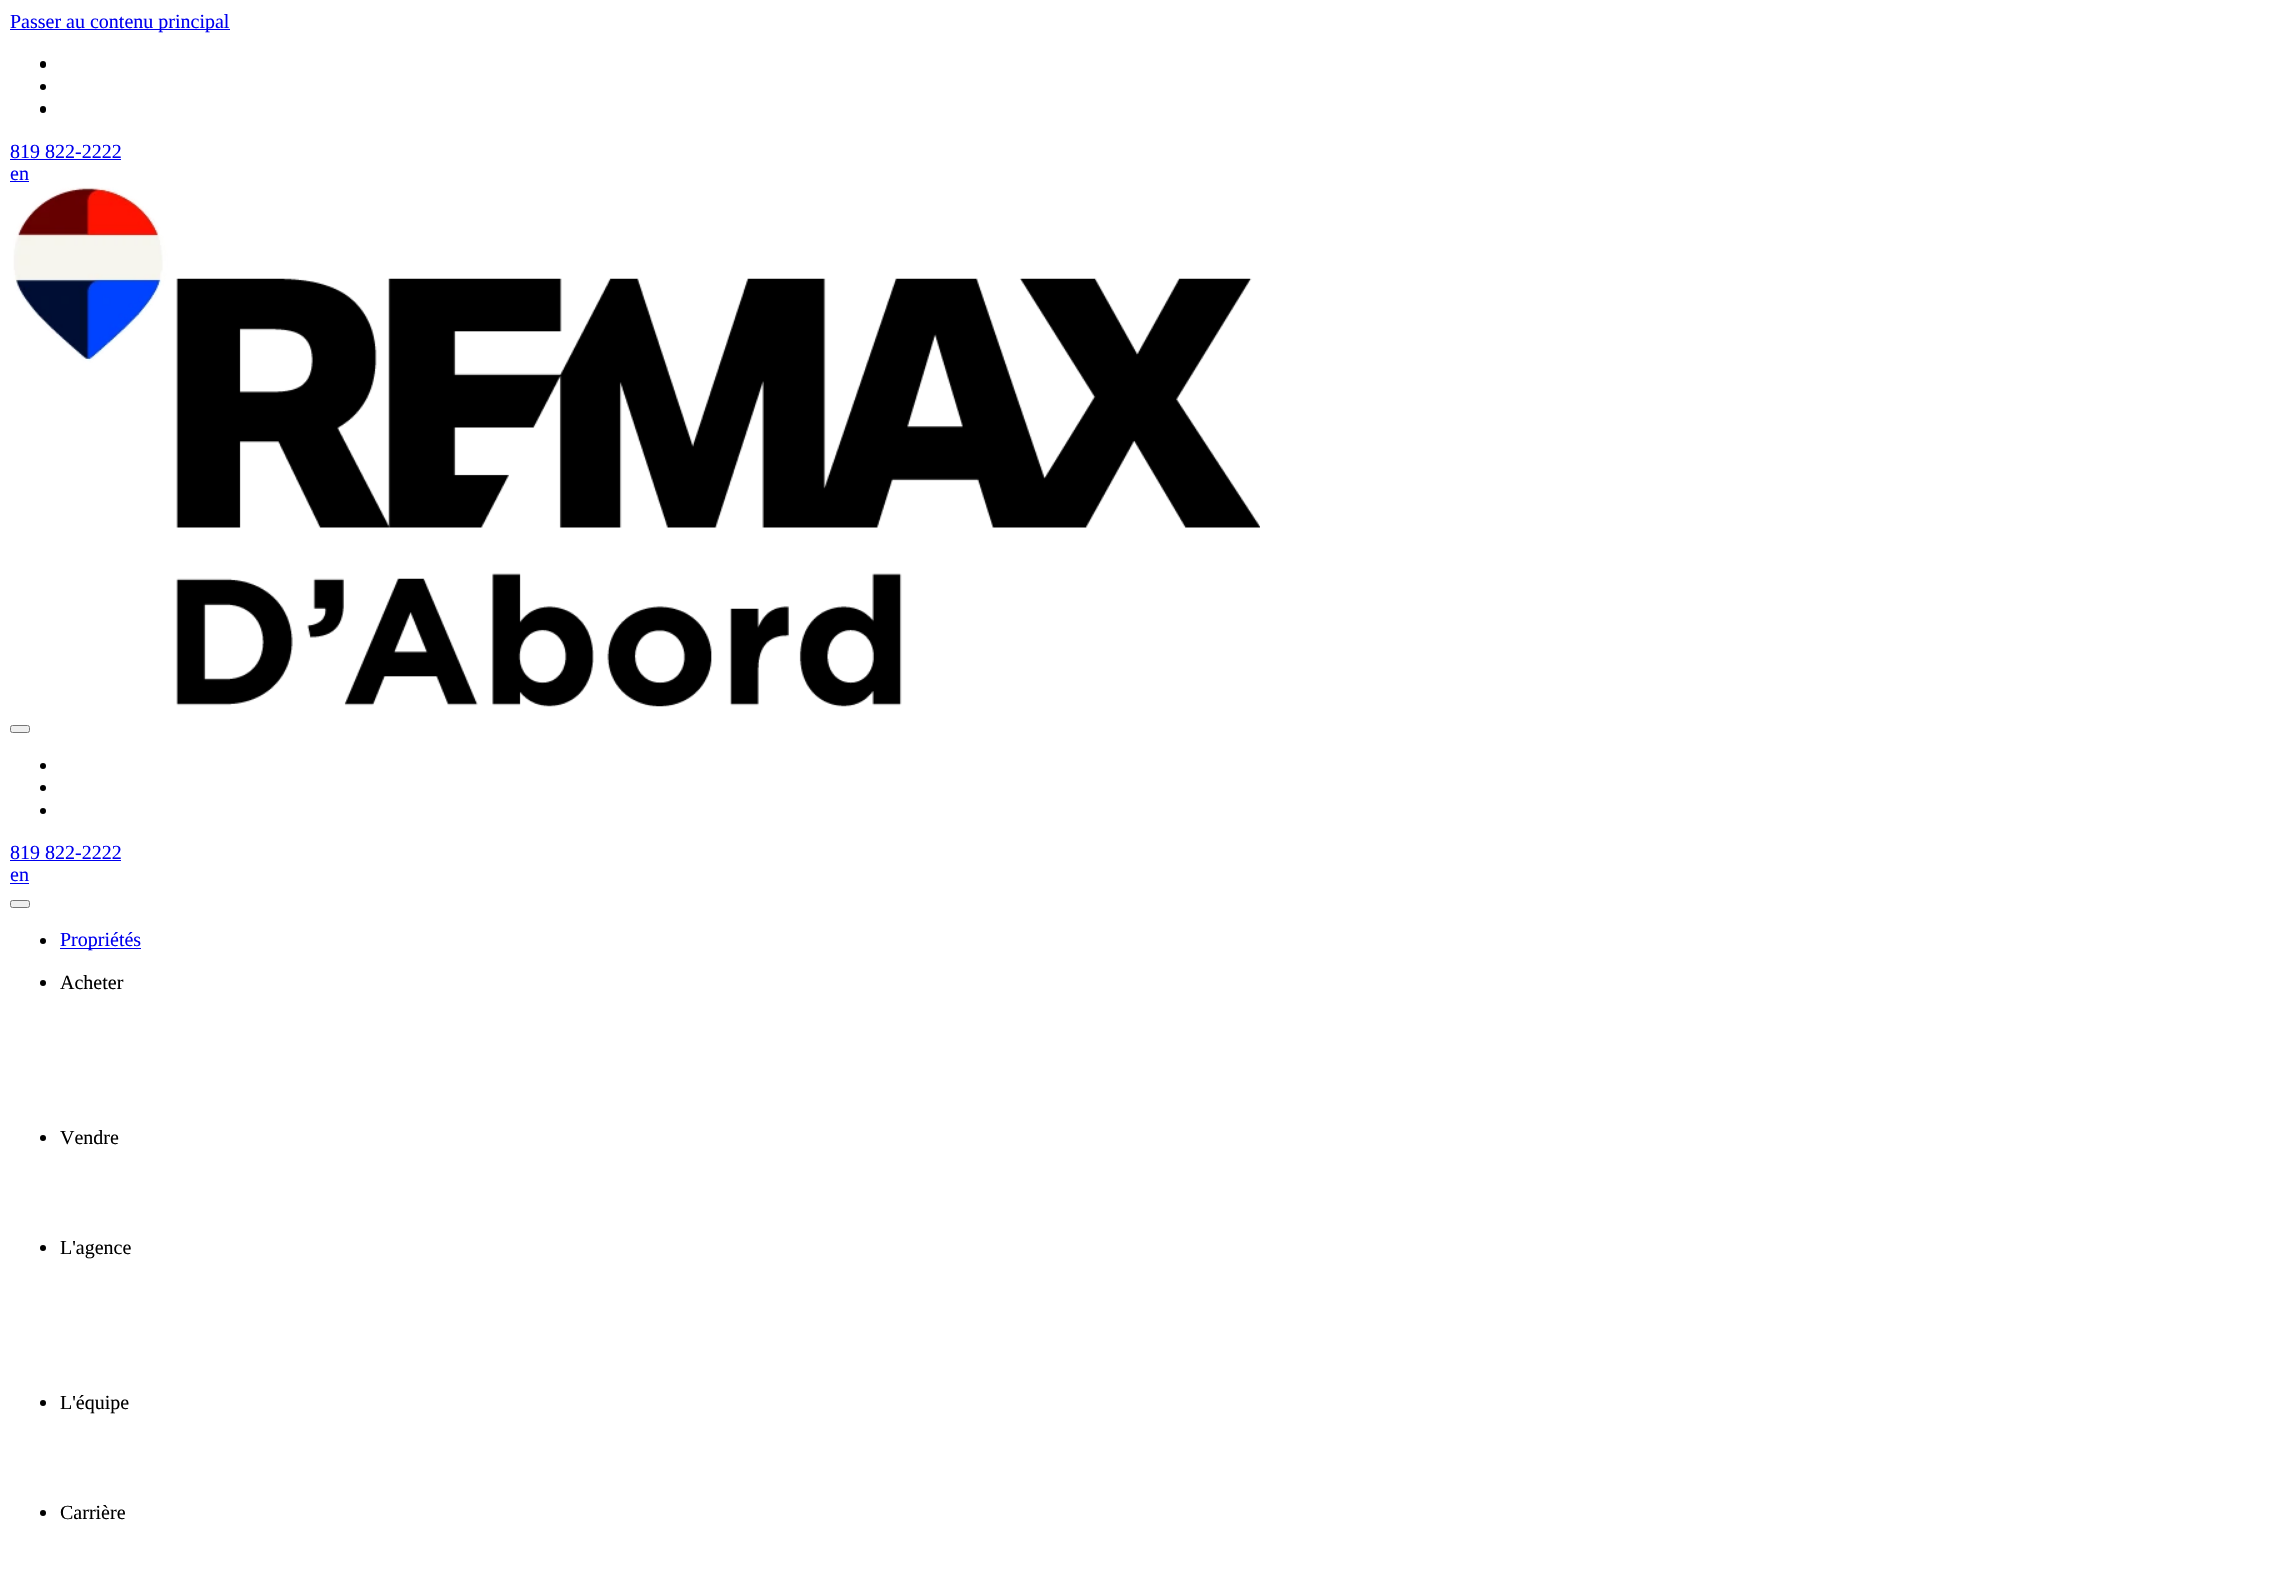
void draw(SkCanvas* canvas) {
  SkPaint paint;
  paint.setAntiAlias(true);
  auto face = [&](const char* family, int weight, float size, bool italic = false) {
    SkFontStyle style(weight, SkFontStyle::kNormal_Width,
      italic ? SkFontStyle::kItalic_Slant : SkFontStyle::kUpright_Slant);
    SkFont result(fontMgr->matchFamilyStyle(family, style), size);
    result.setSubpixel(true);
    return result;
  };
  auto paste = [&](const char* path, float x, float y, float w, float h) {
    auto image = SkImages::DeferredFromEncodedData(SkData::MakeFromFileName(path));
    canvas->drawImageRect(image, SkRect::MakeXYWH(x, y, w, h), SkSamplingOptions());
  };
  canvas->clear(0xffffffff);
  paint.setColor(0xff0000ee);
  canvas->drawRect(SkRect::MakeXYWH(10, 29, 220, 1), paint);
  paint.setColor(0xff000000);
  canvas->drawRoundRect(SkRect::MakeXYWH(40, 61, 6, 7), 3, 3, paint);
  canvas->drawCircle(43, 87, 3, paint);
  canvas->drawRoundRect(SkRect::MakeXYWH(40, 106, 6, 7), 3, 3, paint);
  paint.setColor(0xff0000ee);
  canvas->drawRect(SkRect::MakeXYWH(10, 159, 111, 1), paint);
  canvas->drawRect(SkRect::MakeXYWH(10, 181, 19, 1), paint);
  paste("img/1.png", 13, 187, 1247, 520);
  paint.setColor(0xffefefef);
  canvas->drawRoundRect(SkRect::MakeXYWH(10.5f, 725.5f, 19, 7), 2, 2, paint);
  paint.setStroke(true);
  paint.setStrokeWidth(1);
  paint.setColor(0xff767676);
  canvas->drawRoundRect(SkRect::MakeXYWH(10.5f, 725.5f, 19, 7), 2, 2, paint);
  paint.setStroke(false);
  paint.setColor(0xff000000);
  canvas->drawCircle(43, 766, 3, paint);
  canvas->drawCircle(43, 788, 3, paint);
  canvas->drawCircle(43, 811, 3, paint);
  paint.setColor(0xff0000ee);
  canvas->drawRect(SkRect::MakeXYWH(10, 860, 111, 1), paint);
  canvas->drawRect(SkRect::MakeXYWH(10, 883, 19, 1), paint);
  paint.setColor(0xffefefef);
  canvas->drawRoundRect(SkRect::MakeXYWH(10.5f, 900.5f, 19, 7), 2, 2, paint);
  paint.setStroke(true);
  paint.setColor(0xff767676);
  canvas->drawRoundRect(SkRect::MakeXYWH(10.5f, 900.5f, 19, 7), 2, 2, paint);
  paint.setStroke(false);
  paint.setColor(0xff000000);
  canvas->drawCircle(43, 941, 3, paint);
  paint.setColor(0xff0000ee);
  canvas->drawRect(SkRect::MakeXYWH(60, 948, 81, 1), paint);
  paint.setColor(0xff000000);
  canvas->drawCircle(43, 983, 3, paint);
  canvas->drawCircle(43, 1138, 3, paint);
  canvas->drawCircle(43, 1248, 3, paint);
  canvas->drawCircle(43, 1403, 3, paint);
  canvas->drawCircle(43, 1513, 3, paint);
  auto f0 = face("Liberation Serif", 400, 20);
  paint.setColor(0xff0000ee);
  {
    const struct { const char* s; float x, y; } items[] = {
      {"Passer au contenu principal", 10, 28},
      {"819 822-2222", 10, 158},
      {"en", 10, 180},
      {"819 822-2222", 10, 859},
      {"en", 10, 881},
      {"Propriétés", 60, 946},
    };
    for (auto [s, x, y] : items) {
      canvas->drawString(s, x, y, f0, paint);
    }
  }
  paint.setColor(0xff000000);
  {
    const struct { const char* s; float x, y; } items[] = {
      {"Acheter", 60, 989},
      {"Vendre", 60, 1144},
      {"L'agence", 60, 1254},
      {"L'équipe", 60, 1409},
      {"Carrière", 60, 1519},
    };
    for (auto [s, x, y] : items) {
      canvas->drawString(s, x, y, f0, paint);
    }
  }
}
